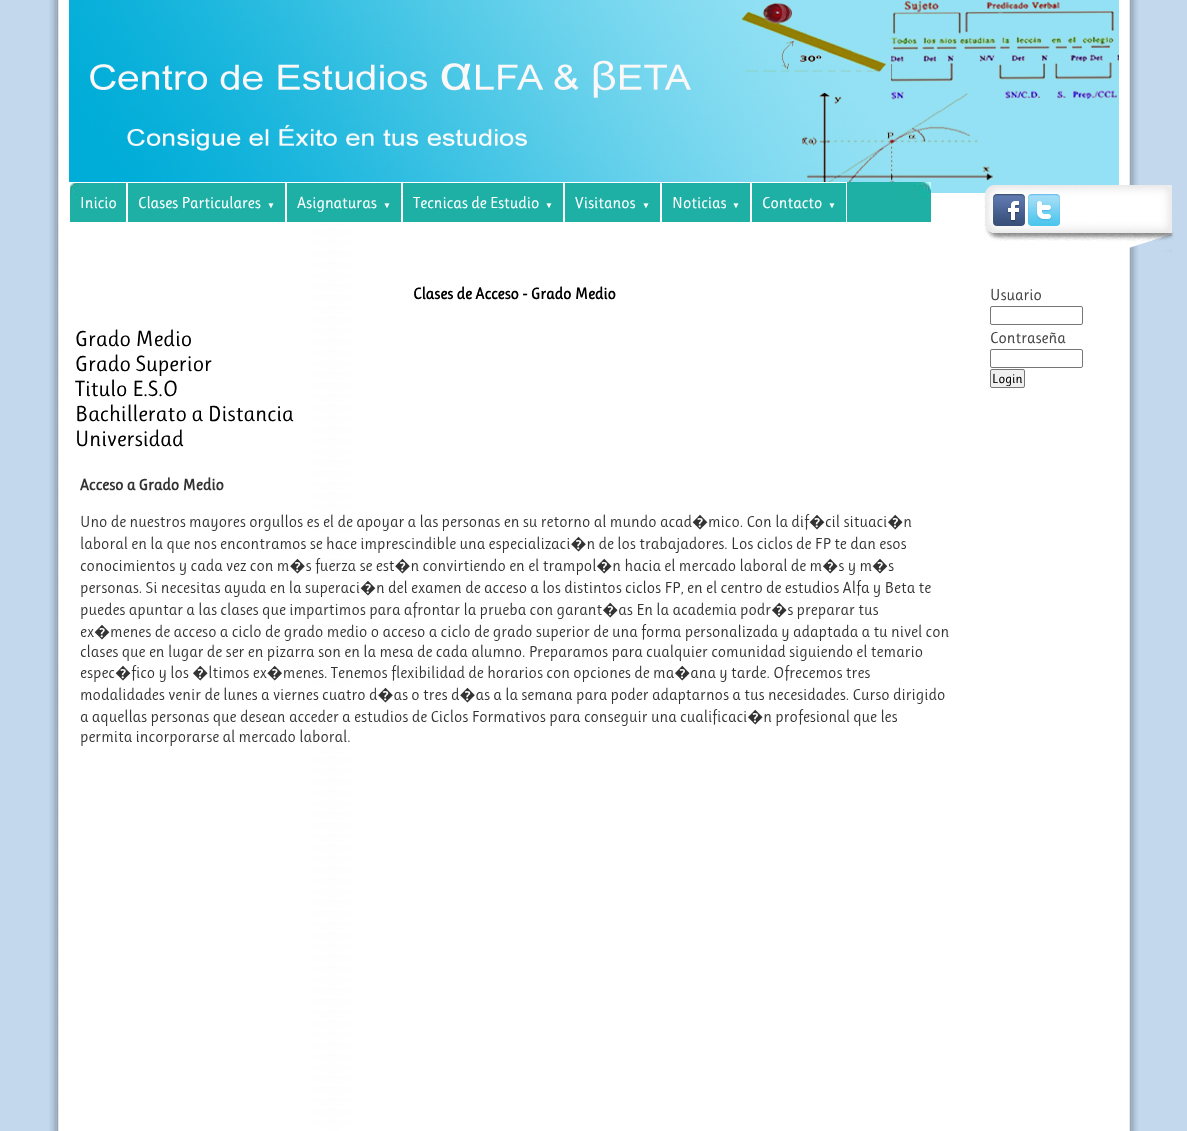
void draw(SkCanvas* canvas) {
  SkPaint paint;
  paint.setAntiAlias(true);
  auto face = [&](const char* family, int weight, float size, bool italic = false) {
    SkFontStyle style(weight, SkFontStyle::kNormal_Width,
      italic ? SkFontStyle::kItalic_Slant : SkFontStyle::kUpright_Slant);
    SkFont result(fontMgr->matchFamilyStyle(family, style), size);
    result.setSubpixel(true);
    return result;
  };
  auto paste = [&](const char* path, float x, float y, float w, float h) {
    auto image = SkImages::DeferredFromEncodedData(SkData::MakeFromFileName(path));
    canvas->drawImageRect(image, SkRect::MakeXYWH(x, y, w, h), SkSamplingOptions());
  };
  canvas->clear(0xffc3d8ed);
  paste("img/1.png", 49, 0, 1090, 1131);
  paste("img/2.png", 69, 0, 1050, 193);
  paste("img/3.png", 70, 182, 861, 40);
  paint.setStroke(true);
  paint.setStrokeWidth(1);
  paint.setColor(0xffffffff);
  canvas->drawRect(SkRect::MakeXYWH(69.5f, 182.5f, 57, 40), paint);
  canvas->drawRect(SkRect::MakeXYWH(127.5f, 182.5f, 158, 40), paint);
  canvas->drawRect(SkRect::MakeXYWH(286.5f, 182.5f, 115, 40), paint);
  canvas->drawRect(SkRect::MakeXYWH(402.5f, 182.5f, 161, 40), paint);
  canvas->drawRect(SkRect::MakeXYWH(564.5f, 182.5f, 96, 40), paint);
  canvas->drawRect(SkRect::MakeXYWH(661.5f, 182.5f, 89, 40), paint);
  canvas->drawRect(SkRect::MakeXYWH(751.5f, 182.5f, 95, 40), paint);
  paste("img/4.png", 984, 185, 190, 67);
  paste("img/5.png", 993, 194, 32, 32);
  paste("img/6.png", 1028, 194, 32, 32);
  paste("img/7.png", 80, 477, 869, 269);
  paint.setColor(0xff767676);
  canvas->drawRoundRect(SkRect::MakeXYWH(990.5f, 306.5f, 92, 18), 1.5f, 1.5f, paint);
  canvas->drawRoundRect(SkRect::MakeXYWH(990.5f, 349.5f, 92, 18), 1.5f, 1.5f, paint);
  paint.setStroke(false);
  paint.setColor(0xffefefef);
  canvas->drawRoundRect(SkRect::MakeXYWH(990.5f, 369.5f, 34, 18), 1.5f, 1.5f, paint);
  paint.setStroke(true);
  paint.setColor(0xff767676);
  canvas->drawRoundRect(SkRect::MakeXYWH(990.5f, 369.5f, 34, 18), 1.5f, 1.5f, paint);
  auto f0 = face("Ruluko", 400, 16);
  paint.setStroke(false);
  paint.setColor(0xffffffff);
  canvas->drawString("Inicio", 80, 208, f0, paint);
  canvas->drawString("Clases Particulares", 138, 208, f0, paint);
  auto f1 = face("Liberation Sans", 400, 8);
  canvas->drawString("▼", 267, 208, f1, paint);
  canvas->drawString("Asignaturas", 297, 208, f0, paint);
  canvas->drawString("▼", 383, 208, f1, paint);
  canvas->drawString("Tecnicas de Estudio", 413, 208, f0, paint);
  canvas->drawString("▼", 545, 208, f1, paint);
  canvas->drawString("Visitanos", 575, 208, f0, paint);
  canvas->drawString("▼", 642, 208, f1, paint);
  canvas->drawString("Noticias", 672, 208, f0, paint);
  canvas->drawString("▼", 732, 208, f1, paint);
  canvas->drawString("Contacto", 762, 208, f0, paint);
  canvas->drawString("▼", 828, 208, f1, paint);
  auto f2 = face("Ruluko", 700, 16);
  paint.setColor(0xff000000);
  canvas->drawString("Clases de Acceso - Grado Medio", 413, 299, f2, paint);
  auto f3 = face("Ruluko", 400, 22);
  {
    const struct { const char* s; float x, y; } items[] = {
      {"Grado Medio", 75, 346},
      {"Grado Superior", 75, 371},
      {"Titulo E.S.O", 75, 396},
      {"Bachillerato a Distancia", 75, 421},
      {"Universidad", 75, 446},
    };
    for (auto [s, x, y] : items) {
      canvas->drawString(s, x, y, f3, paint);
    }
  }
  paint.setColor(0xff454545);
  canvas->drawString("Usuario", 990, 300, f0, paint);
  canvas->drawString("Contraseña", 990, 343, f0, paint);
  auto f4 = face("Ruluko", 400, 13);
  paint.setColor(0xff000000);
  canvas->drawString("Login", 992, 383, f4, paint);
}
